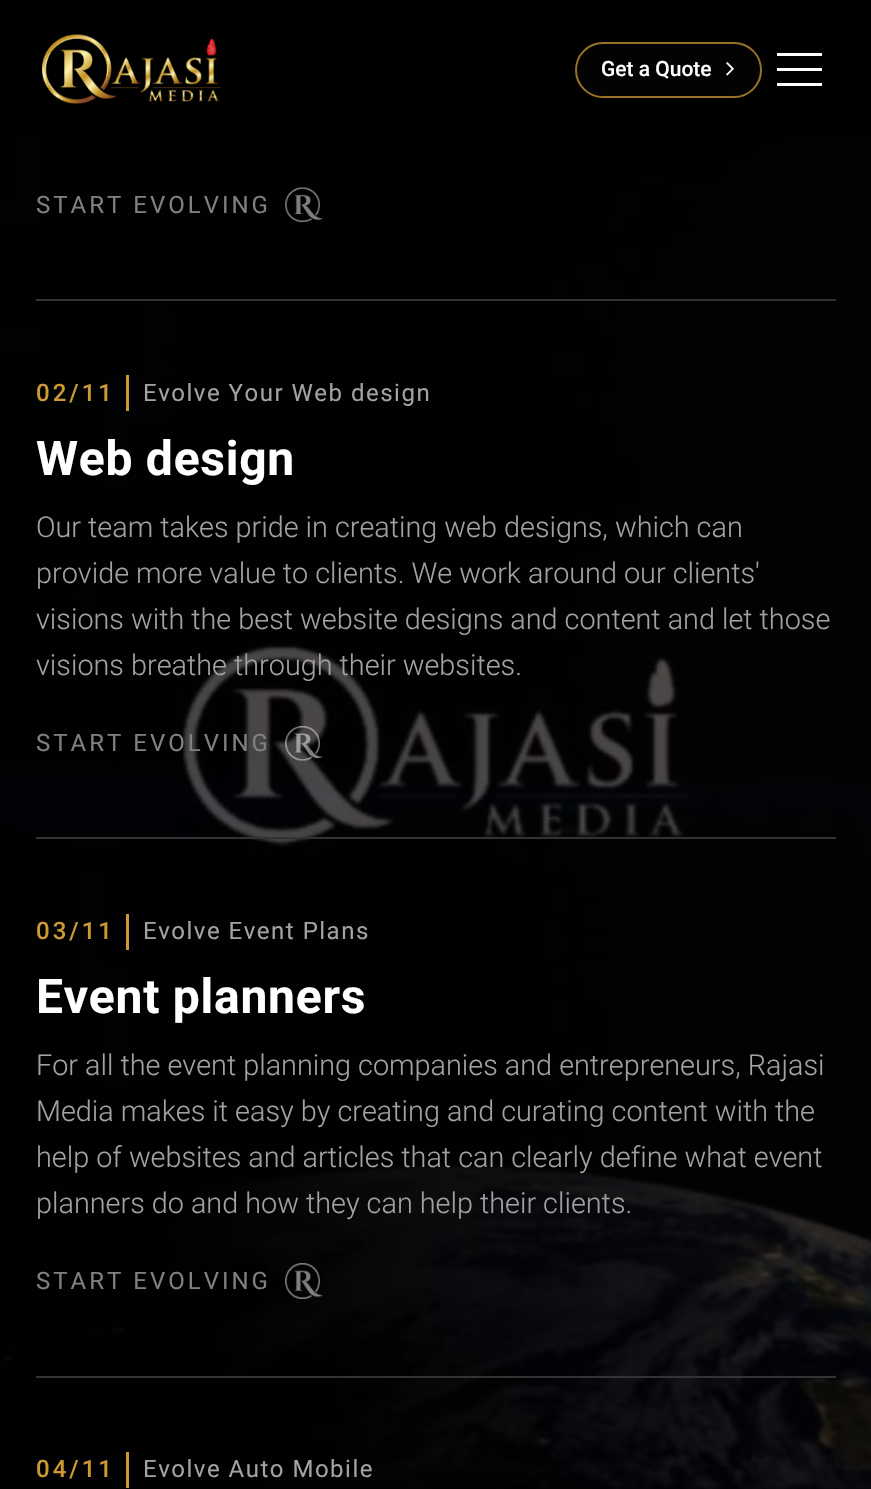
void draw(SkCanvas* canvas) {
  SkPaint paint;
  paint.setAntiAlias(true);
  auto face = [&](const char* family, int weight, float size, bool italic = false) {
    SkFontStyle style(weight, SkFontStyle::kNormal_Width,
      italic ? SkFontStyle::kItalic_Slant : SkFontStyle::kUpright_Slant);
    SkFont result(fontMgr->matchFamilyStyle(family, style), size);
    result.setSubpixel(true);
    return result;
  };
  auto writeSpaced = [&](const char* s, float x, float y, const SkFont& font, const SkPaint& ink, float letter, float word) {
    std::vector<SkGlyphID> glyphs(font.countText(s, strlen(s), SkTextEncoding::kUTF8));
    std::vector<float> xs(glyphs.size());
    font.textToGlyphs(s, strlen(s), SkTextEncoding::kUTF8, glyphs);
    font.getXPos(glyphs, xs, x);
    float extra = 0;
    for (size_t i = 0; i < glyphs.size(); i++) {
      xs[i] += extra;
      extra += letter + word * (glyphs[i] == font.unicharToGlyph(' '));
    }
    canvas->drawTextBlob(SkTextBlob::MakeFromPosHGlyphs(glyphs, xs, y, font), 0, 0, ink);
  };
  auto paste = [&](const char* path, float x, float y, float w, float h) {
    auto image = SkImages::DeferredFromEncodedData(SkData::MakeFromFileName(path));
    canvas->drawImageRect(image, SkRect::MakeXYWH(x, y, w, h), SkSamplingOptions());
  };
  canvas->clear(0xffffffff);
  paint.setColor(0xff000000);
  canvas->drawRect(SkRect::MakeXYWH(0, 0, 871, 138), paint);
  paste("img/1.png", 42, 34, 179, 70);
  paint.setColor(0xff030303);
  canvas->drawRoundRect(SkRect::MakeXYWH(576, 43, 185, 54), 27, 27, paint);
  paint.setStroke(true);
  paint.setStrokeWidth(2);
  paint.setColor(0xff987226);
  canvas->drawRoundRect(SkRect::MakeXYWH(576, 43, 185, 54), 27, 27, paint);
  paste("img/2.png", 726, 62, 8, 14);
  paint.setStroke(false);
  {
    const struct { float x, y, w, h; SkColor color; } items[] = {
      {777, 53, 45, 3, 0xffffffff},
      {777, 68, 45, 3, 0xffffffff},
      {777, 83, 45, 3, 0xffffffff},
    };
    for (auto [x, y, w, h, color] : items) {
      paint.setColor(color);
      canvas->drawRect(SkRect::MakeXYWH(x, y, w, h), paint);
    }
  }
  paste("img/3.png", 0, 138, 871, 1351);
  paste("img/4.png", 285, 187, 38, 35);
  paint.setColor(0xff333333);
  canvas->drawRect(SkRect::MakeXYWH(36, 299, 800, 2), paint);
  paint.setColor(0xffcc9933);
  canvas->drawRect(SkRect::MakeXYWH(126, 375, 3, 36), paint);
  paste("img/5.png", 285, 726, 38, 35);
  paint.setColor(0xff333333);
  canvas->drawRect(SkRect::MakeXYWH(36, 837, 800, 2), paint);
  paint.setColor(0xffcc9933);
  canvas->drawRect(SkRect::MakeXYWH(126, 914, 3, 36), paint);
  paste("img/6.png", 285, 1263, 38, 36);
  paint.setColor(0xff333333);
  canvas->drawRect(SkRect::MakeXYWH(36, 1376, 800, 2), paint);
  paint.setColor(0xffcc9933);
  canvas->drawRect(SkRect::MakeXYWH(126, 1452, 3, 36), paint);
  auto f0 = face("Roboto", 500, 21);
  paint.setColor(0xffffffff);
  canvas->drawString("Get a Quote", 601, 76, f0, paint);
  auto f1 = face("Roboto", 400, 24);
  paint.setColor(0xff808080);
  writeSpaced("START EVOLVING", 36, 213, f1, paint, 3, 0);
  auto f2 = face("Roboto", 500, 24);
  paint.setColor(0xffcc9933);
  writeSpaced("02/11", 36, 401, f2, paint, 3, 0);
  paint.setColor(0xffa2a2a2);
  writeSpaced("Evolve Your Web design", 143, 401, f1, paint, 1.5f, 0);
  auto f3 = face("Roboto", 700, 48);
  paint.setColor(0xffffffff);
  writeSpaced("Web design", 36, 475, f3, paint, 0.75f, 0);
  auto f4 = face("Roboto", 300, 28.8f);
  paint.setColor(0xffa2a2a2);
  {
    const struct { const char* s; float x, y; } items[] = {
      {"Our team takes pride in creating web designs, which can", 36, 537},
      {"provide more value to clients. We work around our clients'", 36, 583},
      {"visions with the best website designs and content and let those", 36, 629},
      {"visions breathe through their websites.", 36, 675},
    };
    for (auto [s, x, y] : items) {
      canvas->drawString(s, x, y, f4, paint);
    }
  }
  paint.setColor(0xff808080);
  writeSpaced("START EVOLVING", 36, 751, f1, paint, 3, 0);
  paint.setColor(0xffcc9933);
  writeSpaced("03/11", 36, 939, f2, paint, 3, 0);
  paint.setColor(0xffa2a2a2);
  writeSpaced("Evolve Event Plans", 143, 939, f1, paint, 1.5f, 0);
  paint.setColor(0xffffffff);
  writeSpaced("Event planners", 36, 1013, f3, paint, 0.75f, 0);
  paint.setColor(0xffa2a2a2);
  {
    const struct { const char* s; float x, y; } items[] = {
      {"For all the event planning companies and entrepreneurs, Rajasi", 36, 1075},
      {"Media makes it easy by creating and curating content with the", 36, 1121},
      {"help of websites and articles that can clearly define what event", 36, 1167},
      {"planners do and how they can help their clients.", 36, 1213},
    };
    for (auto [s, x, y] : items) {
      canvas->drawString(s, x, y, f4, paint);
    }
  }
  paint.setColor(0xff808080);
  writeSpaced("START EVOLVING", 36, 1289, f1, paint, 3, 0);
  paint.setColor(0xffcc9933);
  writeSpaced("04/11", 36, 1477, f2, paint, 3, 0);
  paint.setColor(0xffa2a2a2);
  writeSpaced("Evolve Auto Mobile", 143, 1477, f1, paint, 1.5f, 0);
}
